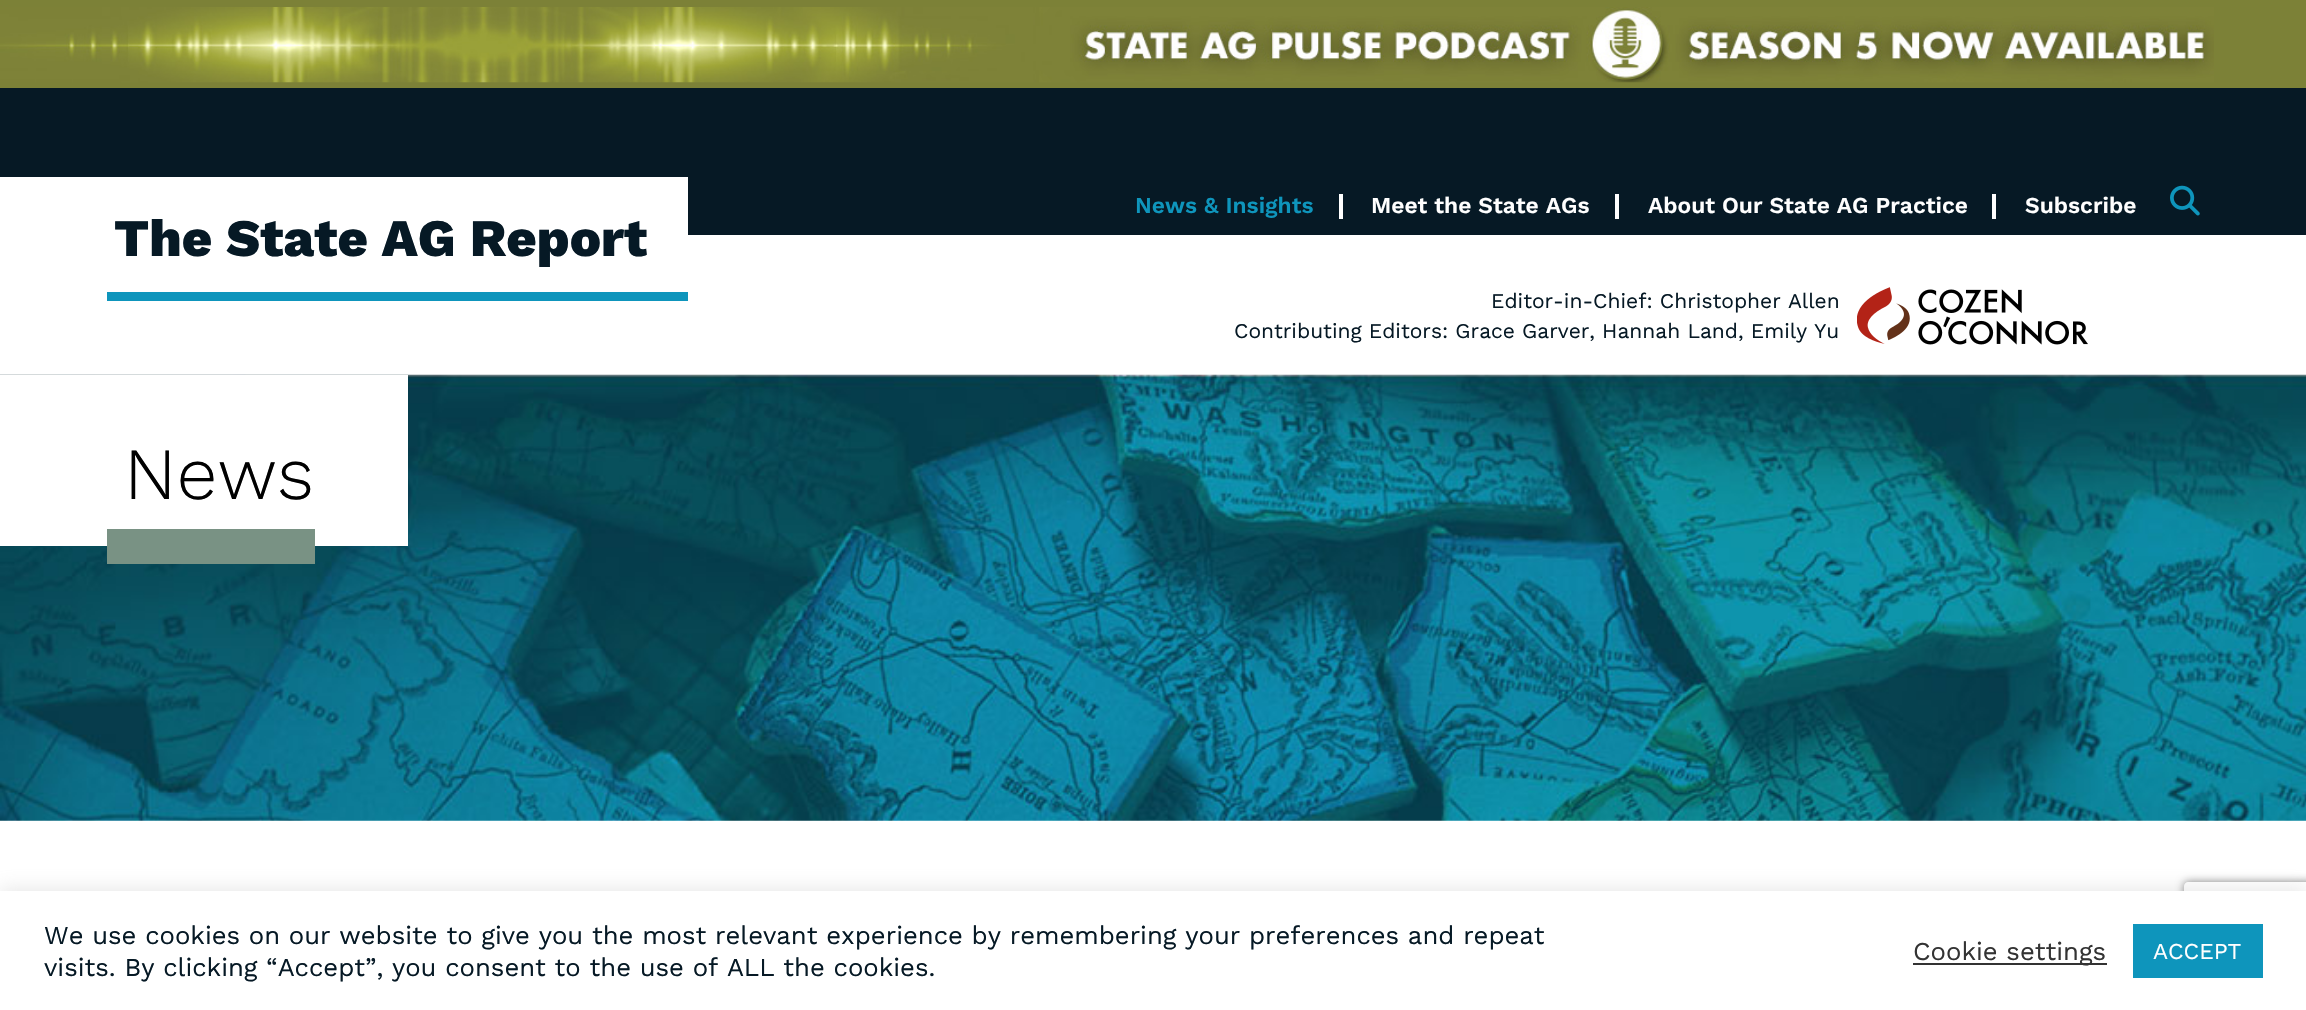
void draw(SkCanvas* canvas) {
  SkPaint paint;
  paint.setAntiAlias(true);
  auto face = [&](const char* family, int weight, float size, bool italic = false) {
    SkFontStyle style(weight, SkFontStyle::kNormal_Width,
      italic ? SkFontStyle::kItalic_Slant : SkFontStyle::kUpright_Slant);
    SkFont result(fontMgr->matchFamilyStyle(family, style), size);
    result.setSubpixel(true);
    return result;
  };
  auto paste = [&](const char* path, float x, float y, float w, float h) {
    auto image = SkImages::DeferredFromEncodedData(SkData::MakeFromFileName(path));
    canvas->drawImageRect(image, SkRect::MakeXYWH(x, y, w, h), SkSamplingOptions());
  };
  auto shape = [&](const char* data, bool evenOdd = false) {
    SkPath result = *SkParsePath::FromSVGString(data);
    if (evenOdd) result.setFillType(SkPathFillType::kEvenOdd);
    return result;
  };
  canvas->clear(0xffffffff);
  paint.setColor(0xff7c8137);
  canvas->drawRect(SkRect::MakeXYWH(0, 0, 2306, 88), paint);
  paste("img/1.png", 0, 7, 2214, 76);
  {
    const struct { float x, y, w, h; SkColor color; } items[] = {
      {0, 88, 2306, 147, 0xff061925},
      {0, 177, 688, 58, 0xffffffff},
      {107, 292, 581, 9, 0xff0e95bc},
      {1339, 194, 4, 25, 0xffffffff},
      {1615, 194, 4, 25, 0xffffffff},
      {1992, 194, 4, 25, 0xffffffff},
    };
    for (auto [x, y, w, h, color] : items) {
      paint.setColor(color);
      canvas->drawRect(SkRect::MakeXYWH(x, y, w, h), paint);
    }
  }
  paste("img/2.png", 2170, 185, 30, 31);
  paste("img/3.png", 1857, 287, 231, 58);
  paste("img/4.png", 0, 374, 2306, 447);
  canvas->drawRect(SkRect::MakeXYWH(0, 375, 408, 171), paint);
  paint.setColor(0xff799284);
  canvas->drawRect(SkRect::MakeXYWH(107, 529, 208, 35), paint);
  canvas->save();
  canvas->clipPath(shape("M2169 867H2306V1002H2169ZM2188 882H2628C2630 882 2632 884 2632 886V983C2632 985 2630 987 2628 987H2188C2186 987 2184 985 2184 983V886C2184 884 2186 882 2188 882Z", true), true);
  paint.setColor(0xff808080);
  paint.setMaskFilter(SkMaskFilter::MakeBlur(kNormal_SkBlurStyle, 4.5f));
  canvas->drawRoundRect(SkRect::MakeXYWH(2184, 882, 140, 105), 4, 4, paint);
  paint.setMaskFilter(nullptr);
  canvas->restore();
  paint.setColor(0x4dacabab);
  paint.setMaskFilter(SkMaskFilter::MakeBlur(kNormal_SkBlurStyle, 9));
  canvas->drawRect(SkRect::MakeXYWH(0, 889, 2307, 121), paint);
  paint.setMaskFilter(nullptr);
  {
    const struct { float x, y, w, h; SkColor color; } items[] = {
      {0, 891, 2306, 119, 0xffffffff},
      {1913, 963, 194, 2, 0xff333333},
      {2133, 924, 130, 54, 0xff0e95bc},
    };
    for (auto [x, y, w, h, color] : items) {
      paint.setColor(color);
      canvas->drawRect(SkRect::MakeXYWH(x, y, w, h), paint);
    }
  }
  auto f0 = face("Work Sans", 800, 52.5f);
  paint.setColor(0xff061925);
  canvas->drawString("The State AG Report", 114, 256, f0, paint);
  auto f1 = face("Work Sans", 600, 22.75f);
  paint.setColor(0xff0e95bc);
  canvas->drawString("News & Insights", 1135, 213, f1, paint);
  paint.setColor(0xffffffff);
  {
    const struct { const char* s; float x, y; } items[] = {
      {"Meet the State AGs", 1371, 213},
      {"About Our State AG Practice", 1648, 213},
      {"Subscribe", 2025, 213},
    };
    for (auto [s, x, y] : items) {
      canvas->drawString(s, x, y, f1, paint);
    }
  }
  auto f2 = face("Work Sans", 400, 21);
  paint.setColor(0xff061925);
  canvas->drawString("Editor-in-Chief: Christopher Allen", 1491, 308, f2, paint);
  canvas->drawString("Contributing Editors: Grace Garver, Hannah Land, Emily Yu", 1234, 338, f2, paint);
  auto f3 = face("Work Sans", 300, 73.5f);
  paint.setColor(0xff000000);
  canvas->drawString("News", 124, 499, f3, paint);
  auto f4 = face("Work Sans", 400, 25.67f);
  paint.setColor(0xff061925);
  canvas->drawString("We use cookies on our website to give you the most relevant experience by remembering your preferences and repeat", 44, 944, f4, paint);
  canvas->drawString("visits. By clicking “Accept”, you consent to the use of ALL the cookies.", 44, 976, f4, paint);
  paint.setColor(0xff333333);
  canvas->drawString("Cookie settings", 1913, 960, f4, paint);
  auto f5 = face("Work Sans", 400, 22.75f);
  paint.setColor(0xffffffff);
  canvas->drawString("ACCEPT", 2153, 959, f5, paint);
}
